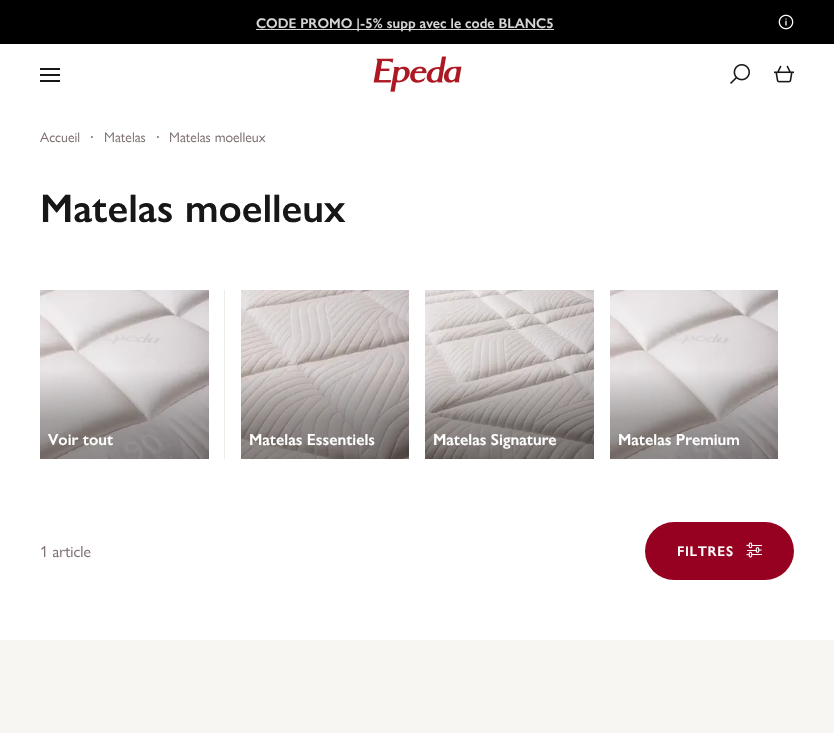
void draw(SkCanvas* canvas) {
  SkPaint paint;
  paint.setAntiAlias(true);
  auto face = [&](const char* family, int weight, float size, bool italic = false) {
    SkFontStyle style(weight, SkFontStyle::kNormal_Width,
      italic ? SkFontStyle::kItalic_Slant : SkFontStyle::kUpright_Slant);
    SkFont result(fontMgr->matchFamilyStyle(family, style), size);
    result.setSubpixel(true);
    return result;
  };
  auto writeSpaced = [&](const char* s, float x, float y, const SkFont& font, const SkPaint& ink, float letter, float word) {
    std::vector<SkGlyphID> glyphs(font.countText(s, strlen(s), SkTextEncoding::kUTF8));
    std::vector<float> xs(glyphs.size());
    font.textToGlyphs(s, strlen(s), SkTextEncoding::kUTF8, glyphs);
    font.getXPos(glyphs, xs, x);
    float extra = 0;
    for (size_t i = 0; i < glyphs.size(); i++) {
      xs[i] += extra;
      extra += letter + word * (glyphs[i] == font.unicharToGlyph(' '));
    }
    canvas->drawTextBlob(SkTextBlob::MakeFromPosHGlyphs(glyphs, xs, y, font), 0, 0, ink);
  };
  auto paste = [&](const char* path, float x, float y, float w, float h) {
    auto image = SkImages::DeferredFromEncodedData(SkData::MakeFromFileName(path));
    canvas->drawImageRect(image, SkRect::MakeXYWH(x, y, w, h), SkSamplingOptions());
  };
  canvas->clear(0xffffffff);
  paint.setColor(0xff000000);
  canvas->drawRect(SkRect::MakeXYWH(0, 0, 834, 44), paint);
  paint.setColor(0xffd5d5d6);
  canvas->drawRect(SkRect::MakeXYWH(256, 29, 298, 1), paint);
  paste("img/1.png", 778, 14, 16, 16);
  {
    const struct { float x, y, w, h; SkColor color; } items[] = {
      {40, 68, 20, 2, 0xff171717},
      {40, 74, 20, 2, 0xff171717},
      {40, 80, 20, 2, 0xff171717},
    };
    for (auto [x, y, w, h, color] : items) {
      paint.setColor(color);
      canvas->drawRect(SkRect::MakeXYWH(x, y, w, h), paint);
    }
  }
  paste("img/2.png", 373, 56, 89, 36);
  paste("img/3.png", 730, 64, 20, 20);
  paste("img/4.png", 774, 65, 20, 18);
  paste("img/5.png", 40, 290, 169, 169);
  paint.setColor(0xfff1ede6);
  canvas->drawRect(SkRect::MakeXYWH(224, 290, 1, 169), paint);
  paste("img/6.png", 241, 290, 168, 169);
  paste("img/7.png", 425, 290, 169, 169);
  paste("img/8.png", 610, 290, 168, 169);
  paint.setColor(0xff960021);
  canvas->drawRoundRect(SkRect::MakeXYWH(645, 522, 149, 58), 29, 29, paint);
  paste("img/9.png", 746, 542, 16, 16);
  paint.setColor(0xfff8f6f2);
  canvas->drawRect(SkRect::MakeXYWH(0, 640, 834, 93), paint);
  auto f0 = face("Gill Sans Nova", 600, 14);
  paint.setColor(0xffd5d5d6);
  canvas->drawString("CODE PROMO |-5% supp avec le code BLANC5", 256, 28, f0, paint);
  auto f1 = face("Gill Sans Nova", 400, 14);
  paint.setColor(0xff7c6e6e);
  canvas->drawString("Accueil", 40, 142, f1, paint);
  auto f2 = face("Noto Sans", 400, 14);
  canvas->drawString("·", 90, 142, f2, paint);
  canvas->drawString("Matelas", 104, 142, f1, paint);
  canvas->drawString("·", 156, 142, f2, paint);
  canvas->drawString("Matelas moelleux", 169, 142, f1, paint);
  auto f3 = face("Gill Sans Nova", 600, 40);
  paint.setColor(0xff171717);
  canvas->drawString("Matelas moelleux", 40, 222, f3, paint);
  auto f4 = face("Gill Sans Nova", 600, 16);
  paint.setColor(0xffffffff);
  {
    const struct { const char* s; float x, y; } items[] = {
      {"Voir tout", 48, 445},
      {"Matelas Essentiels", 249, 445},
      {"Matelas Signature", 433, 445},
      {"Matelas Premium", 618, 445},
    };
    for (auto [s, x, y] : items) {
      canvas->drawString(s, x, y, f4, paint);
    }
  }
  auto f5 = face("Gill Sans Nova", 400, 16);
  paint.setColor(0xff7c6e6e);
  canvas->drawString("1 article", 40, 557, f5, paint);
  paint.setColor(0xffffffff);
  writeSpaced("FILTRES", 677, 556, f0, paint, 0.75f, 0);
}
